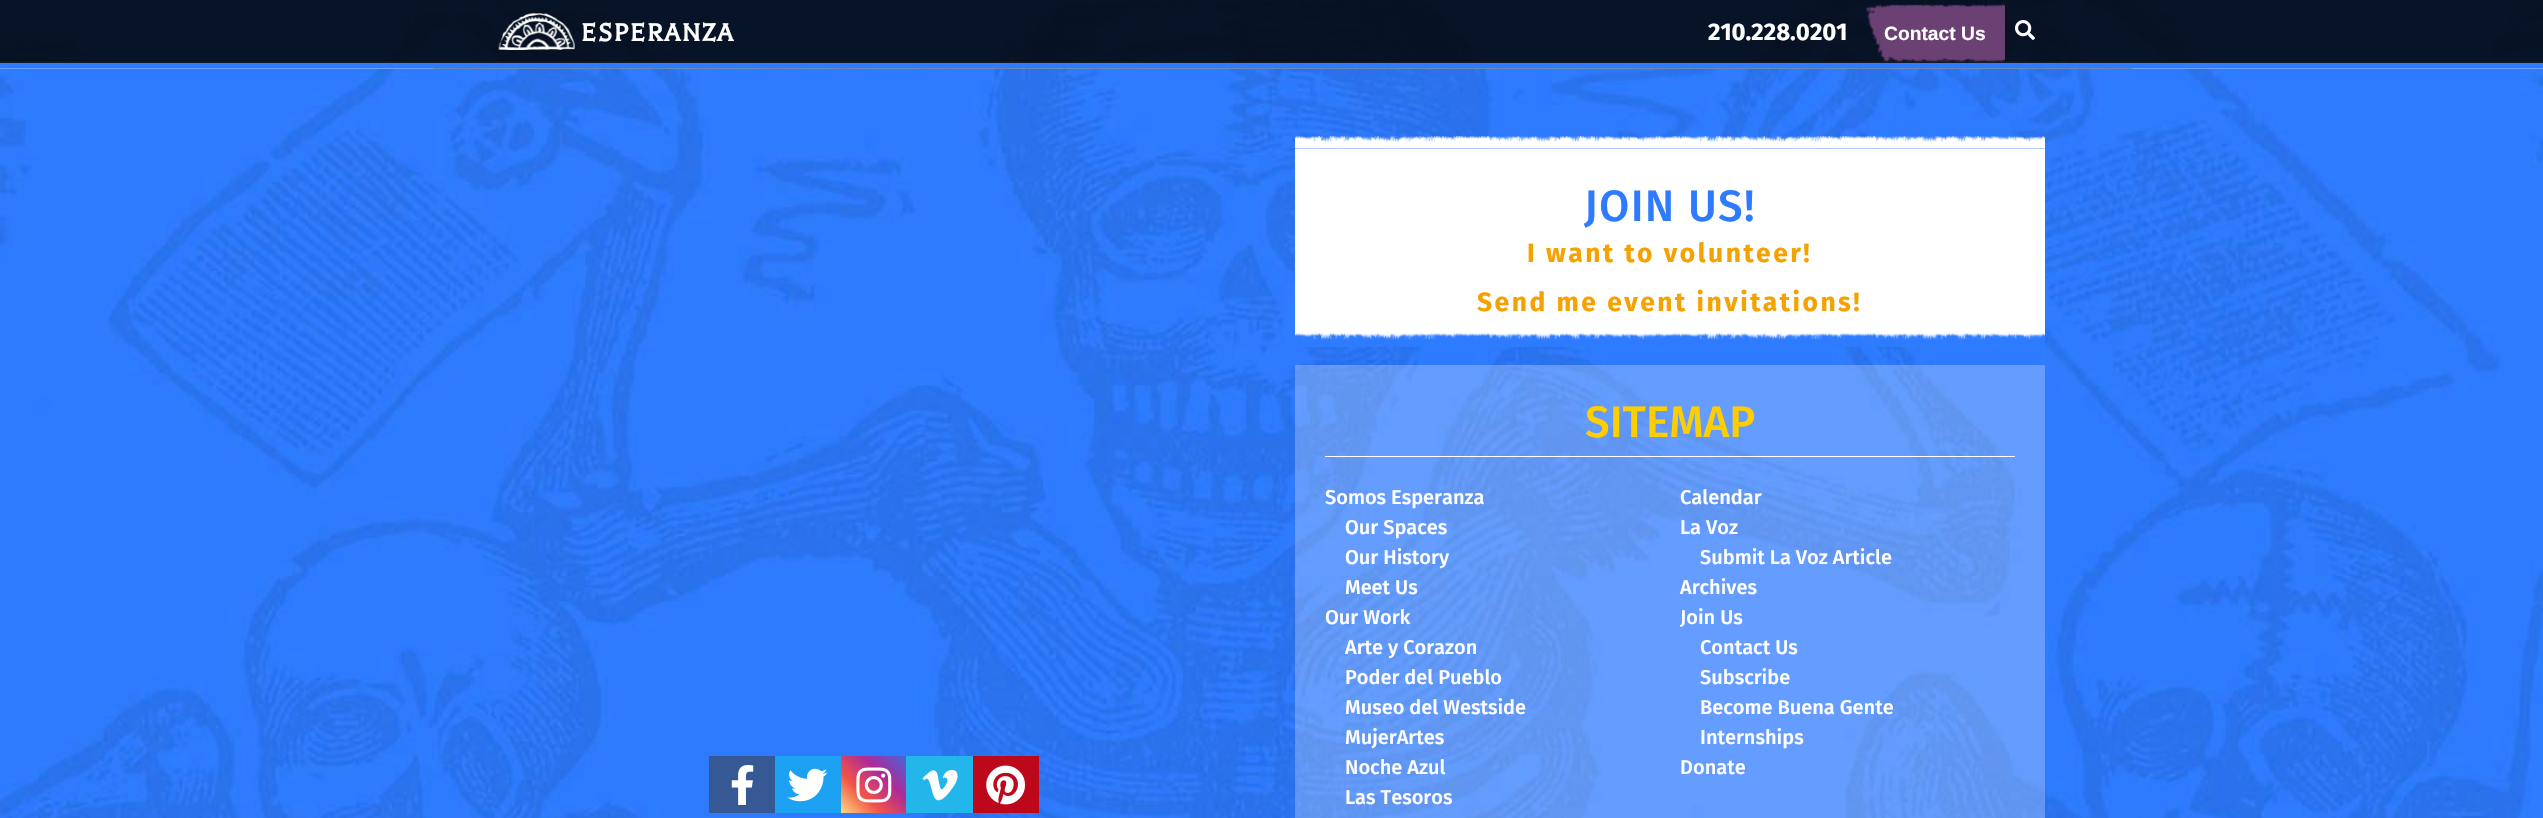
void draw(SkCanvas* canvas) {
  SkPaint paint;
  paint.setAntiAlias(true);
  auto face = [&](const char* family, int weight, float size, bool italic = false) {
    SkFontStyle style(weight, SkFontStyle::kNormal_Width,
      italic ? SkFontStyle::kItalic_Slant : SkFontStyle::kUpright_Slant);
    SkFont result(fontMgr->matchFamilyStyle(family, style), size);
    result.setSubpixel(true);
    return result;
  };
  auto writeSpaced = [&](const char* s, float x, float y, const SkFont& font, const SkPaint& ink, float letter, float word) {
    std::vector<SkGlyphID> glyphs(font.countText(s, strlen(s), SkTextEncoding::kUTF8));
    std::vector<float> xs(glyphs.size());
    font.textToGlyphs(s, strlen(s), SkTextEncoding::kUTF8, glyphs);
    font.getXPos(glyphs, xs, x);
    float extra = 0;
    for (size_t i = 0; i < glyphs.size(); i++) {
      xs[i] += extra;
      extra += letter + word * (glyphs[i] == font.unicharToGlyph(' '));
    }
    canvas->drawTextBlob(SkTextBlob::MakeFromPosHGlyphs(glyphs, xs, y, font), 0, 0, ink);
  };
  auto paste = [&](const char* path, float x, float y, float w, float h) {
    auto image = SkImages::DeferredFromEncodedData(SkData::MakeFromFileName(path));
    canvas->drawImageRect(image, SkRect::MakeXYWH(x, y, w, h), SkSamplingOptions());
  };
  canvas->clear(0xffffffff);
  paste("img/1.png", 433, 68, 1699, 1);
  paste("img/2.png", 0, 0, 2543, 63);
  paint.setColor(0xd9000000);
  canvas->drawRect(SkRect::MakeXYWH(0, 0, 2543, 63), paint);
  paste("img/3.png", 498, 12, 78, 38);
  paste("img/4.png", 1865, 4, 140, 59);
  paste("img/5.png", 2015, 20, 20, 20);
  paste("img/6.png", 0, 68, 2543, 750);
  paste("img/7.png", 0, 63, 2543, 6);
  paint.setColor(0xff365895);
  canvas->drawRect(SkRect::MakeXYWH(709, 756, 66, 57), paint);
  paste("img/8.png", 731, 765, 23, 40);
  paint.setColor(0xff1da1f2);
  canvas->drawRect(SkRect::MakeXYWH(775, 756, 66, 57), paint);
  paste("img/9.png", 787, 768, 41, 34);
  {
    const SkColor colors[] = {0xfffeda82, 0xfff15347, 0xffae2a97, 0xff4766da};
    const float stops[] = {0, 0.33f, 0.65f, 1};
    const SkPoint ends[] = {{843, 815}, {904, 754}};
    paint.setShader(SkGradientShader::MakeLinear(ends, colors, stops, 4, SkTileMode::kClamp));
    paint.setAlpha(255);
  }
  canvas->drawRect(SkRect::MakeXYWH(841, 756, 65, 57), paint);
  paste("img/10.png", 856, 767, 36, 36);
  paint.setShader(nullptr);
  paint.setColor(0xff23b6ea);
  canvas->drawRect(SkRect::MakeXYWH(906, 756, 67, 57), paint);
  paste("img/11.png", 922, 770, 36, 31);
  paint.setColor(0xffbd071a);
  canvas->drawRect(SkRect::MakeXYWH(973, 756, 66, 57), paint);
  paste("img/12.png", 986, 765, 39, 40);
  paint.setColor(0xffffffff);
  canvas->drawRect(SkRect::MakeXYWH(1295, 149, 750, 191), paint);
  paste("img/13.png", 1295, 136, 750, 13);
  paste("img/14.png", 1295, 333, 750, 14);
  paint.setColor(0x40ffffff);
  canvas->drawRect(SkRect::MakeXYWH(1295, 365, 750, 453), paint);
  paint.setColor(0xffffffff);
  canvas->drawRect(SkRect::MakeXYWH(1325, 456, 690, 1), paint);
  auto f0 = face("Balthazar", 700, 28);
  writeSpaced("ESPERANZA", 581, 41, f0, paint, 1.75f, 0);
  auto f1 = face("Fira Sans", 700, 24);
  canvas->drawString("210.228.0201", 1708, 40, f1, paint);
  auto f2 = face("Liberation Sans", 700, 19.25f);
  canvas->drawString("Contact Us", 1884, 40, f2, paint);
  auto f3 = face("Fira Sans", 500, 44);
  paint.setColor(0xff2e7bff);
  writeSpaced("JOIN US!", 1584, 221, f3, paint, 1.25f, 0);
  auto f4 = face("Fira Sans", 700, 26.4f);
  paint.setColor(0xfff5a200);
  writeSpaced("I want to volunteer!", 1527, 262, f4, paint, 2.5f, 0);
  writeSpaced("Send me event invitations!", 1477, 311, f4, paint, 2.5f, 0);
  paint.setColor(0xffffce00);
  canvas->drawString("SITEMAP", 1585, 437, f3, paint);
  auto f5 = face("Fira Sans", 500, 20);
  paint.setColor(0xffffffff);
  {
    const struct { const char* s; float x, y; } items[] = {
      {"Somos Esperanza", 1325, 504},
      {"Our Spaces", 1345, 534},
      {"Our History", 1345, 564},
      {"Meet Us", 1345, 594},
      {"Calendar", 1680, 504},
      {"La Voz", 1680, 534},
      {"Submit La Voz Article", 1700, 564},
      {"Archives", 1680, 594},
      {"Our Work", 1325, 624},
      {"Arte y Corazon", 1345, 654},
      {"Poder del Pueblo", 1345, 684},
      {"Museo del Westside", 1345, 714},
      {"MujerArtes", 1345, 744},
      {"Noche Azul", 1345, 774},
      {"Las Tesoros", 1345, 804},
      {"Join Us", 1680, 624},
      {"Contact Us", 1700, 654},
      {"Subscribe", 1700, 684},
      {"Become Buena Gente", 1700, 714},
      {"Internships", 1700, 744},
      {"Donate", 1680, 774},
    };
    for (auto [s, x, y] : items) {
      canvas->drawString(s, x, y, f5, paint);
    }
  }
}
